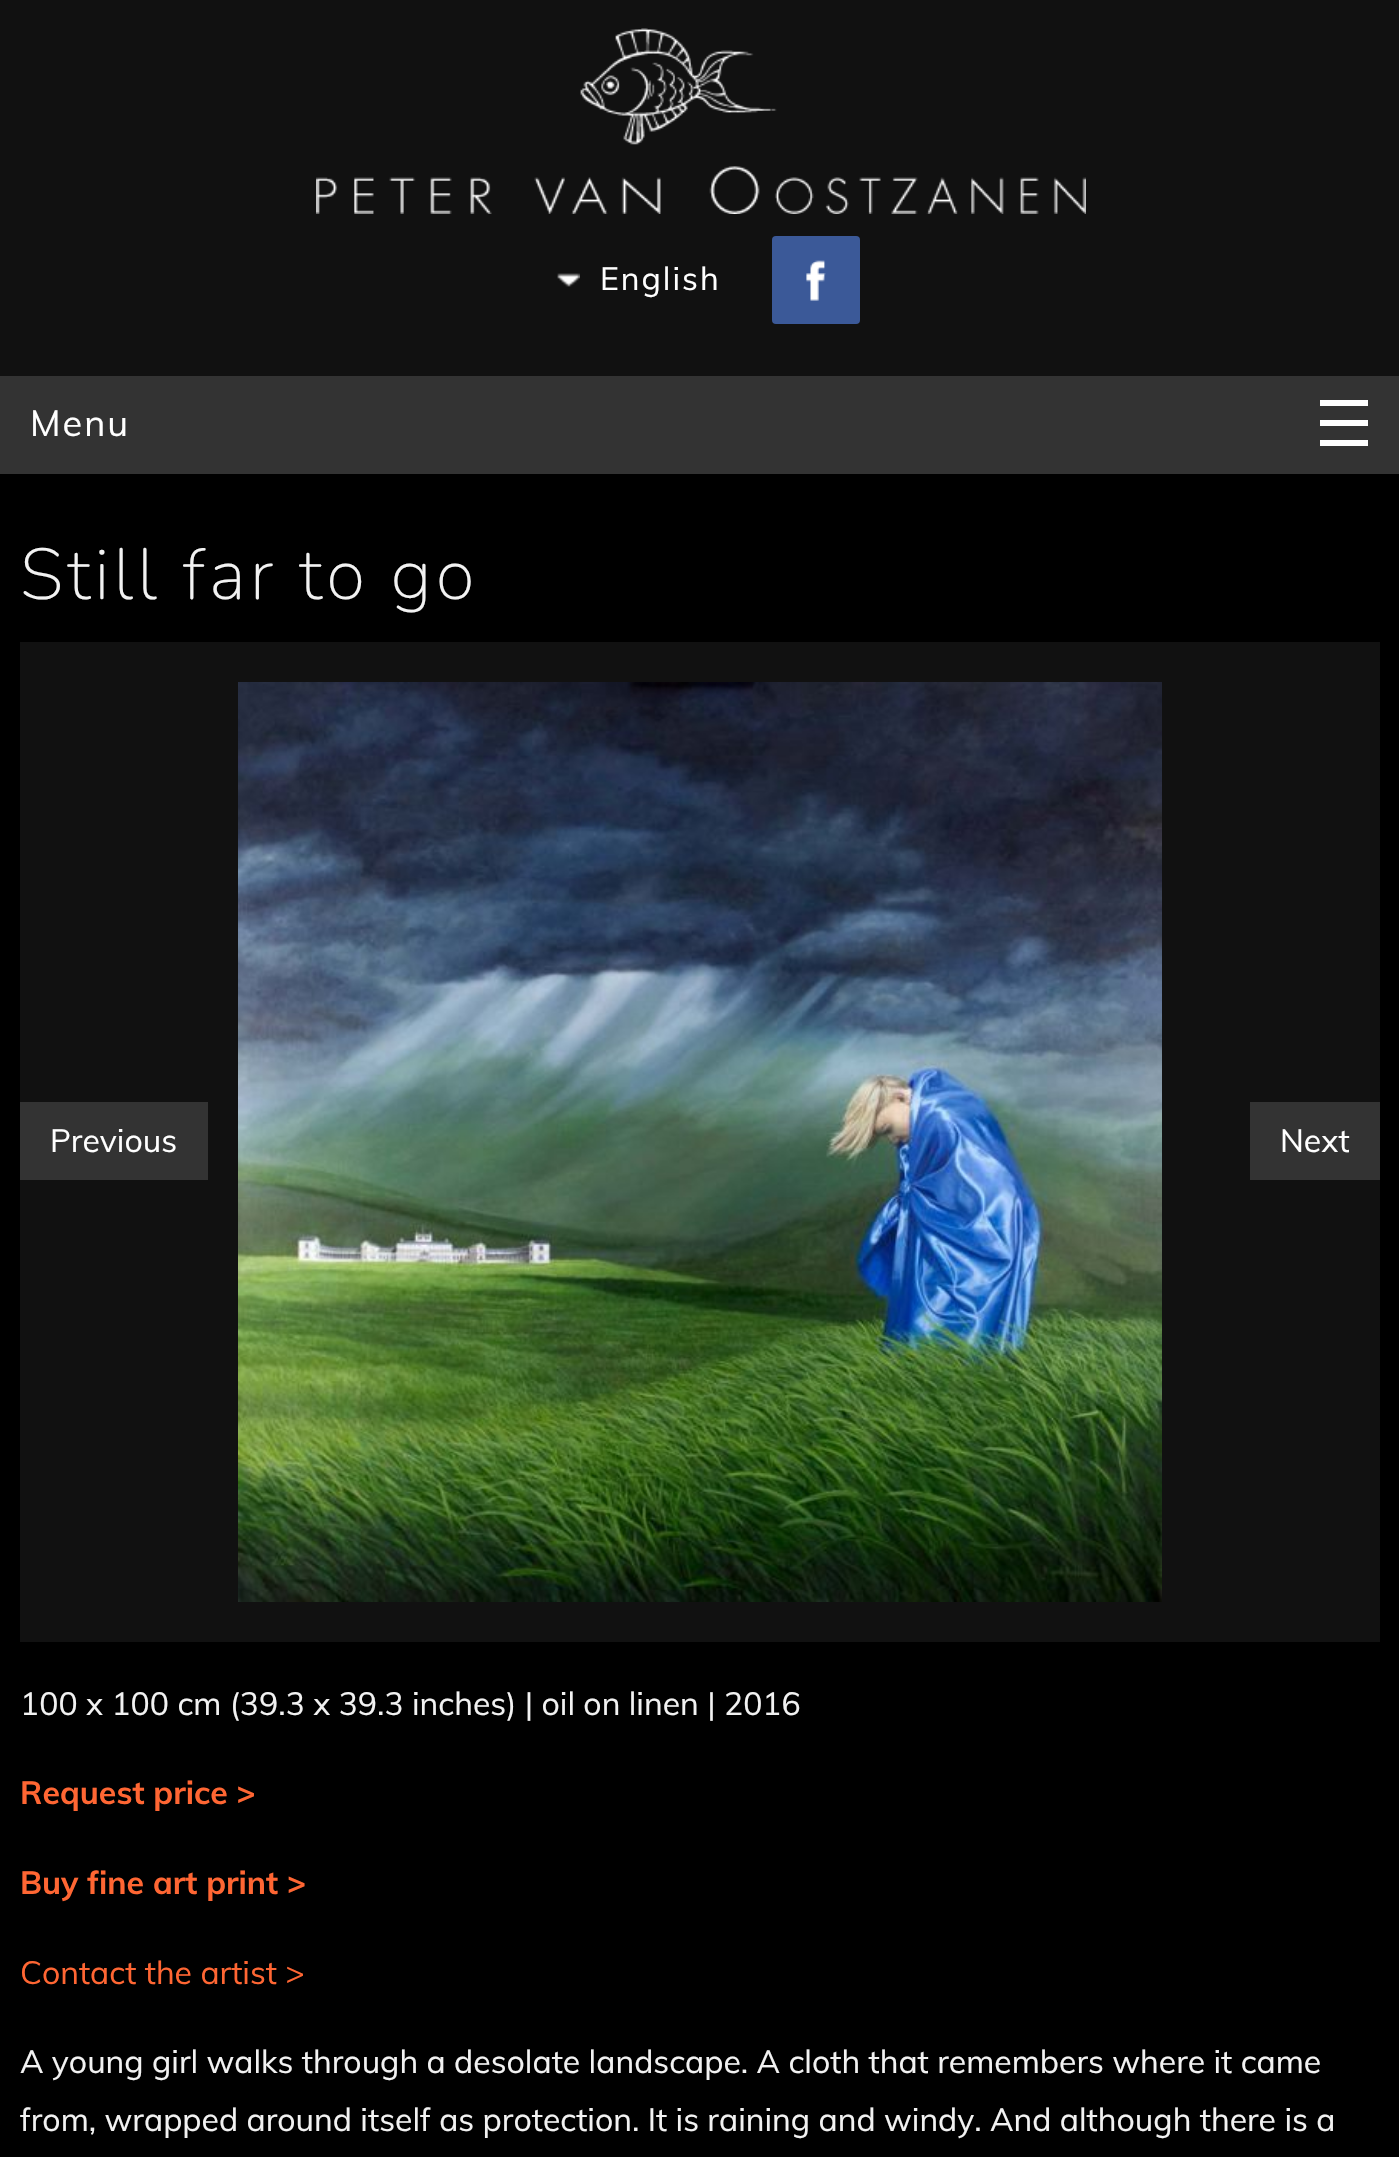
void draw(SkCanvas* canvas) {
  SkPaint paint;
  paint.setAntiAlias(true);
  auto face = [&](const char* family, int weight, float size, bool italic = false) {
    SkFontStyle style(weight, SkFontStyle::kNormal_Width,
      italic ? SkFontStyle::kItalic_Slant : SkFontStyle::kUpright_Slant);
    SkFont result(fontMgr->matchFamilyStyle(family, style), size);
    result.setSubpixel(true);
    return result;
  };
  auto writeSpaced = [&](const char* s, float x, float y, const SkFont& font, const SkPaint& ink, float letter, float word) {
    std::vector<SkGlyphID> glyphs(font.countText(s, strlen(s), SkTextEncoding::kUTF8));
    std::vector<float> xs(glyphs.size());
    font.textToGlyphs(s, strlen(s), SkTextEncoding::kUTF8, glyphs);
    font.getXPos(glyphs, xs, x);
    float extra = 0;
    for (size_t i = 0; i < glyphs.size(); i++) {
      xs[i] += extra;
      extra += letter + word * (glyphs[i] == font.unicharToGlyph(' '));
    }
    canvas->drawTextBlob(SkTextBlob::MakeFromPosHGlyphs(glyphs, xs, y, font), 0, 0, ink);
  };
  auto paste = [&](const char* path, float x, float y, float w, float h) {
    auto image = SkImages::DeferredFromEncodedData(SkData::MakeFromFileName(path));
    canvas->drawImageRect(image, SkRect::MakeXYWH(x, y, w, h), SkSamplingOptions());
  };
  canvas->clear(0xff000000);
  paint.setColor(0xff111111);
  canvas->drawRect(SkRect::MakeXYWH(0, 0, 1399, 376), paint);
  paste("img/1.png", 316, 28, 770, 186);
  paste("img/2.png", 557, 273, 23, 14);
  paste("img/3.png", 772, 236, 88, 88);
  {
    const struct { float x, y, w, h; SkColor color; } items[] = {
      {0, 376, 1399, 98, 0xff333333},
      {1320, 400, 48, 6, 0xffffffff},
      {1320, 420, 48, 6, 0xffffffff},
      {1320, 440, 48, 6, 0xffffffff},
      {20, 642, 1360, 1000, 0xff111111},
      {20, 1102, 188, 78, 0xff333333},
    };
    for (auto [x, y, w, h, color] : items) {
      paint.setColor(color);
      canvas->drawRect(SkRect::MakeXYWH(x, y, w, h), paint);
    }
  }
  paste("img/4.png", 238, 682, 924, 920);
  canvas->drawRect(SkRect::MakeXYWH(1250, 1102, 130, 78), paint);
  auto f0 = face("Muli", 400, 32);
  paint.setColor(0xffffffff);
  writeSpaced("English", 600, 290, f0, paint, 2, 0);
  auto f1 = face("Muli", 400, 36);
  writeSpaced("Menu", 30, 436, f1, paint, 2, 0);
  auto f2 = face("Nunito", 200, 72);
  paint.setColor(0xfff2f2f2);
  writeSpaced("Still far to go", 20, 599, f2, paint, 4, 0);
  paint.setColor(0xffffffff);
  canvas->drawString("Previous", 50, 1152, f0, paint);
  canvas->drawString("Next", 1280, 1152, f0, paint);
  paint.setColor(0xfff2f2f2);
  canvas->drawString("100 x 100 cm (39.3 x 39.3 inches) | oil on linen | 2016", 20, 1715, f0, paint);
  auto f3 = face("Muli", 700, 32);
  paint.setColor(0xffff6633);
  canvas->drawString("Request price >", 20, 1804, f3, paint);
  canvas->drawString("Buy fine art print >", 20, 1894, f3, paint);
  canvas->drawString("Contact the artist >", 20, 1984, f0, paint);
  paint.setColor(0xfff2f2f2);
  canvas->drawString("A young girl walks through a desolate landscape. A cloth that remembers where it came", 20, 2073, f0, paint);
  canvas->drawString("from, wrapped around itself as protection. It is raining and windy. And although there is a", 20, 2131, f0, paint);
}
